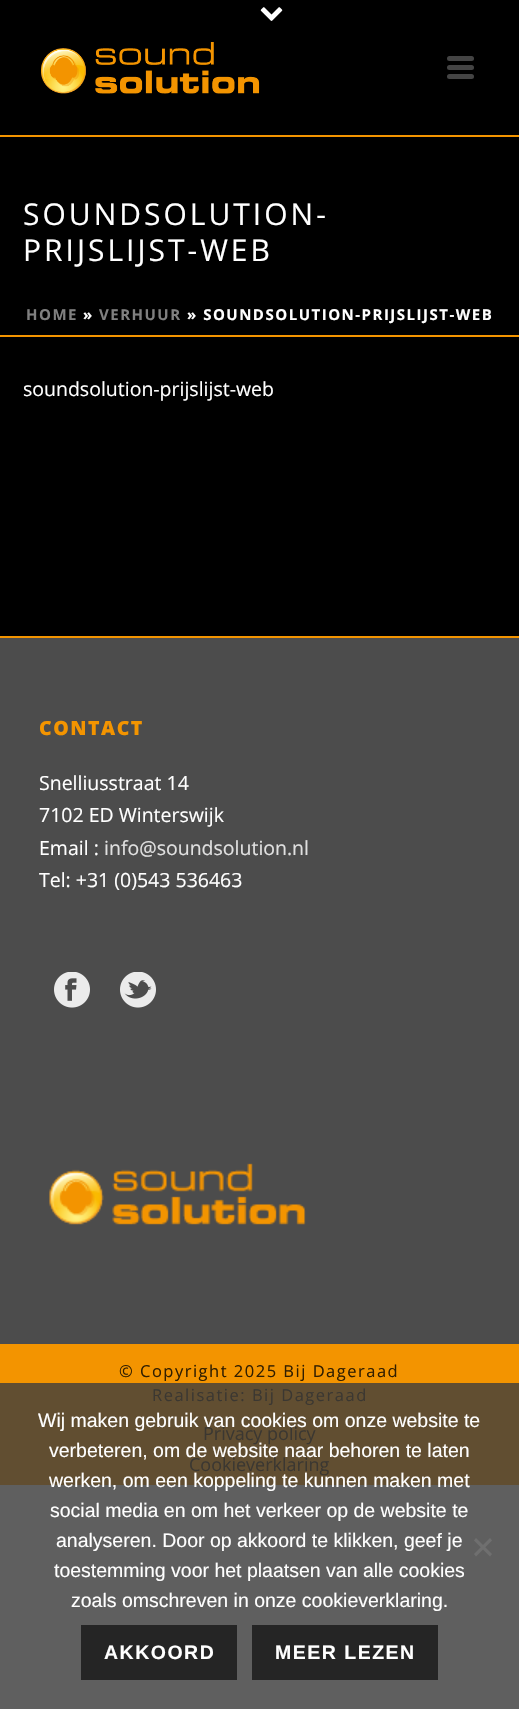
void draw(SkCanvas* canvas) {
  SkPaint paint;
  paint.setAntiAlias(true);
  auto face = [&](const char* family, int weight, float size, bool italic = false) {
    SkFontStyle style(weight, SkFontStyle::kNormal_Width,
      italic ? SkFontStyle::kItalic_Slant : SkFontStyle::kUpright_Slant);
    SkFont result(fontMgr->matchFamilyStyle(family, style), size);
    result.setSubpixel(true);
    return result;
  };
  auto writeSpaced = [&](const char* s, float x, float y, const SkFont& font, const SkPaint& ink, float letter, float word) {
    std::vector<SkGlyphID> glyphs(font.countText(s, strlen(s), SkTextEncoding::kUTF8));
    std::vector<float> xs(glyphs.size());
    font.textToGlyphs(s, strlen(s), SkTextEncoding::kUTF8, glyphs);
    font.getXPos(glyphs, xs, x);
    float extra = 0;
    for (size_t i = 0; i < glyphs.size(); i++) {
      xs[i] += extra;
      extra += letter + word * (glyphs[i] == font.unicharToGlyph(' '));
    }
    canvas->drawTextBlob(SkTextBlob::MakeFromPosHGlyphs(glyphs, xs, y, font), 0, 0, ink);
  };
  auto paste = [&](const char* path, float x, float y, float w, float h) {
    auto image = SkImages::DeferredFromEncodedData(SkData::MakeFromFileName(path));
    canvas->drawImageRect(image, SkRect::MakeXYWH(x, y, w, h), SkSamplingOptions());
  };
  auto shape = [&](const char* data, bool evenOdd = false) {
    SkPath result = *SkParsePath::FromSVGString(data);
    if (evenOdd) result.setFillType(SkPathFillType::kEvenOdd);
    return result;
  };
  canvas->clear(0xff5f5f5f);
  {
    const struct { float x, y, w, h; SkColor color; } items[] = {
      {0, 0, 519, 335, 0xff000000},
      {0, 335, 519, 2, 0xfff39400},
      {0, 135, 519, 2, 0xfff39400},
    };
    for (auto [x, y, w, h, color] : items) {
      paint.setColor(color);
      canvas->drawRect(SkRect::MakeXYWH(x, y, w, h), paint);
    }
  }
  paste("img/1.png", 260, 7, 23, 14);
  paste("img/2.png", 41, 42, 219, 52);
  paint.setColor(0xff444444);
  canvas->drawRoundRect(SkRect::MakeXYWH(447, 56, 27, 5), 2.5f, 2.5f, paint);
  canvas->drawRoundRect(SkRect::MakeXYWH(447, 65, 27, 5), 2.5f, 2.5f, paint);
  canvas->drawRoundRect(SkRect::MakeXYWH(447, 74, 27, 5), 2.5f, 2.5f, paint);
  {
    const struct { float x, y, w, h; SkColor color; } items[] = {
      {0, 337, 519, 299, 0xff000000},
      {0, 638, 519, 706, 0xff4c4c4c},
      {0, 636, 519, 2, 0xfff39400},
    };
    for (auto [x, y, w, h, color] : items) {
      paint.setColor(color);
      canvas->drawRect(SkRect::MakeXYWH(x, y, w, h), paint);
    }
  }
  paste("img/3.png", 54, 972, 36, 36);
  paste("img/4.png", 120, 972, 36, 36);
  paste("img/5.png", 49, 1163, 257, 62);
  canvas->drawRect(SkRect::MakeXYWH(0, 1344, 519, 39), paint);
  paint.setColor(0xff614e31);
  canvas->drawRect(SkRect::MakeXYWH(0, 1383, 519, 102), paint);
  paint.setColor(0xff6f6f6f);
  canvas->drawPath(shape("M490 1538L492 1540.5L476 1556.5L474 1554Z"), paint);
  canvas->drawPath(shape("M474 1540.5L476 1538L492 1554L490 1556.5Z"), paint);
  paint.setColor(0xff252525);
  canvas->drawRect(SkRect::MakeXYWH(81, 1625, 156, 55), paint);
  canvas->drawRect(SkRect::MakeXYWH(252, 1625, 186, 55), paint);
  auto f0 = face("Open Sans", 400, 30);
  paint.setColor(0xffffffff);
  writeSpaced("SOUNDSOLUTION-", 23, 225, f0, paint, 3, 0);
  writeSpaced("PRIJSLIJST-WEB", 23, 261, f0, paint, 3, 0);
  auto f1 = face("Open Sans", 700, 15);
  paint.setColor(0xff808080);
  writeSpaced("HOME", 26, 320, f1, paint, 1.5f, 0);
  paint.setColor(0xffffffff);
  writeSpaced("»", 83, 320, f1, paint, 1.5f, 0);
  paint.setColor(0xff808080);
  writeSpaced("VERHUUR", 99, 320, f1, paint, 1.5f, 0);
  paint.setColor(0xffffffff);
  writeSpaced("» SOUNDSOLUTION-PRIJSLIJST-WEB", 187, 320, f1, paint, 1.5f, 0);
  auto f2 = face("Open Sans", 400, 19.5f);
  canvas->drawString("soundsolution-prijslijst-web", 23, 396, f2, paint);
  auto f3 = face("Open Sans", 800, 19.5f);
  paint.setColor(0xfff39400);
  writeSpaced("CONTACT", 39, 735, f3, paint, 1.5f, 0);
  paint.setColor(0xffffffff);
  {
    const struct { const char* s; float x, y; } items[] = {
      {"Snelliusstraat 14", 39, 790},
      {"7102 ED Winterswijk", 39, 822},
      {"Email :", 39, 855},
    };
    for (auto [s, x, y] : items) {
      canvas->drawString(s, x, y, f2, paint);
    }
  }
  paint.setColor(0xffe0e0e0);
  canvas->drawString("info@soundsolution.nl", 104, 855, f2, paint);
  paint.setColor(0xffffffff);
  canvas->drawString("Tel: +31 (0)543 536463", 39, 887, f2, paint);
  auto f4 = face("Open Sans", 400, 16.5f);
  paint.setColor(0xff311e00);
  writeSpaced("© Copyright 2025 Bij Dageraad", 119, 1377, f4, paint, 1.5f, 0);
  paint.setColor(0xff3b3731);
  writeSpaced("Realisatie: Bij Dageraad", 152, 1401, f4, paint, 1.5f, 0);
  auto f5 = face("Open Sans", 400, 18);
  canvas->drawString("Privacy policy", 203, 1440, f5, paint);
  canvas->drawString("Cookieverklaring", 189, 1471, f5, paint);
  auto f6 = face("Liberation Sans", 400, 19.5f);
  paint.setColor(0xffffffff);
  {
    const struct { const char* s; float x, y; } items[] = {
      {"Wij maken gebruik van cookies om onze website te", 38, 1427},
      {"verbeteren, om de website naar behoren te laten", 49, 1457},
      {"werken, om een koppeling te kunnen maken met", 49, 1487},
      {"social media en om het verkeer op de website te", 50, 1517},
      {"analyseren. Door op akkoord te klikken, geef je", 56, 1547},
      {"toestemming voor het plaatsen van alle cookies", 54, 1577},
      {"zoals omschreven in onze cookieverklaring.", 71, 1607},
    };
    for (auto [s, x, y] : items) {
      canvas->drawString(s, x, y, f6, paint);
    }
  }
  auto f7 = face("Liberation Sans", 700, 19.5f);
  writeSpaced("AKKOORD", 104, 1659, f7, paint, 1.5f, 0);
  writeSpaced("MEER LEZEN", 275, 1659, f7, paint, 1.5f, 0);
}
